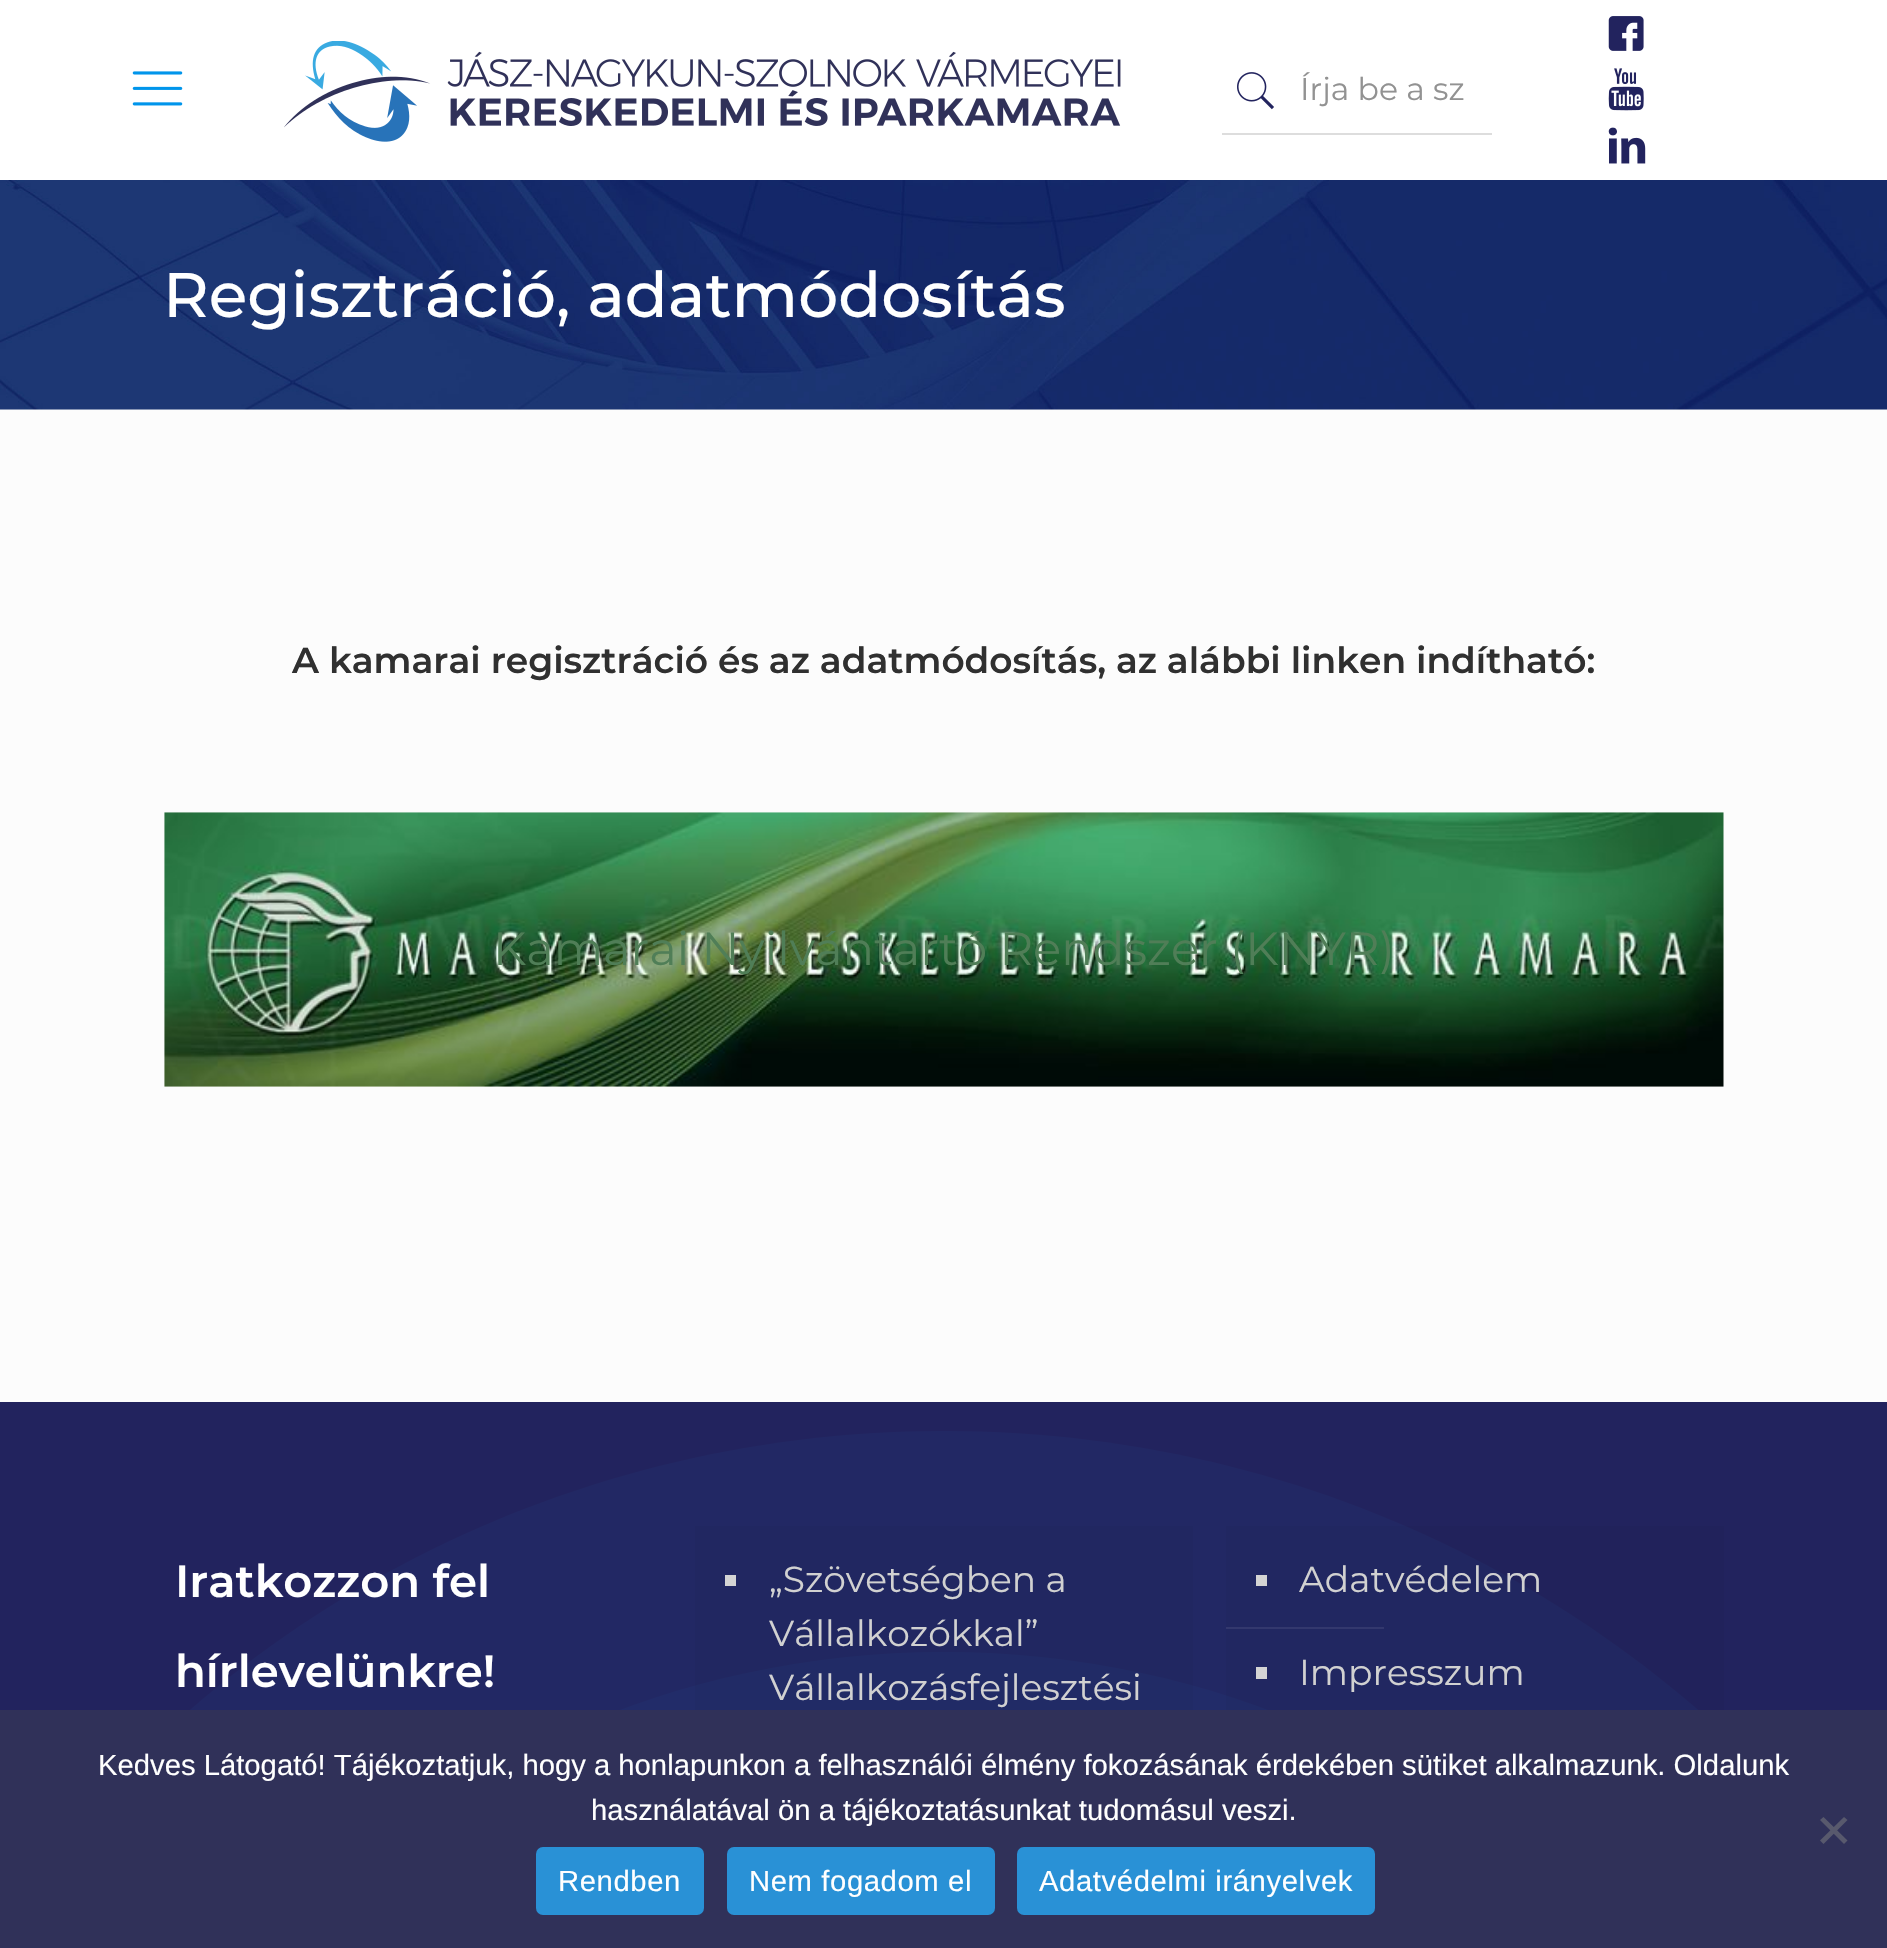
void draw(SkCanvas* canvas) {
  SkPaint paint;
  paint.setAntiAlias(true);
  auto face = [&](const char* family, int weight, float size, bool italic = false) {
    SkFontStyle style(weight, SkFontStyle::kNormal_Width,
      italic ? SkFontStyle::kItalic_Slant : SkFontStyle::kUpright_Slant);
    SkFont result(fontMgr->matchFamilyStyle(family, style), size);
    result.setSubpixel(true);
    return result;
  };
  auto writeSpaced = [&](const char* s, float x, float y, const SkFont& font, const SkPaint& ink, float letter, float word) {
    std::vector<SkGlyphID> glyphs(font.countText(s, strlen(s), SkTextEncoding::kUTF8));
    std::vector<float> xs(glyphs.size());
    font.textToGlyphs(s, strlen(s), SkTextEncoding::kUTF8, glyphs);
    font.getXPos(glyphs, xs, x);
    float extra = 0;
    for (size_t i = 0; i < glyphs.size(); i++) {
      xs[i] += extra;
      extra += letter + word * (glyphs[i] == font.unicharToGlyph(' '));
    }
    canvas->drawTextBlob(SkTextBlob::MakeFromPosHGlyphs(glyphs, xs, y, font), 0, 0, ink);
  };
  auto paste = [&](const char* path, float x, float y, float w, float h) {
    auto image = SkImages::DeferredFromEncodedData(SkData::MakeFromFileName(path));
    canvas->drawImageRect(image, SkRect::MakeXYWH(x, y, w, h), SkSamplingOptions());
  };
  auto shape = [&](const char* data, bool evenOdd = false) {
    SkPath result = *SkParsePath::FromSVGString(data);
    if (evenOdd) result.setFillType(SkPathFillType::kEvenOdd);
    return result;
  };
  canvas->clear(0xfffcfcfc);
  paint.setColor(0xffffffff);
  canvas->drawRect(SkRect::MakeXYWH(0, 0, 1887, 180), paint);
  paste("img/1.png", 132, 71, 51, 35);
  paste("img/2.png", 284, 41, 837, 101);
  paste("img/3.png", 1237, 72, 37, 38);
  paint.setColor(0xffdddddd);
  canvas->drawRect(SkRect::MakeXYWH(1222, 133, 270, 2), paint);
  paste("img/4.png", 1608, 16, 36, 35);
  paste("img/5.png", 1608, 68, 36, 43);
  paste("img/6.png", 1608, 127, 38, 37);
  paint.setColor(0xfff7f7f7);
  canvas->drawRect(SkRect::MakeXYWH(0, 409, 1887, 1), paint);
  paste("img/7.png", 0, 180, 1887, 230);
  paste("img/8.png", 164, 812, 1560, 275);
  paint.setColor(0xff22235e);
  canvas->drawRect(SkRect::MakeXYWH(0, 1402, 1887, 308), paint);
  paint.setColor(0xff222864);
  canvas->drawPath(shape("M944 1431C340 1431-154 1890-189 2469V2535H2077V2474C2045 1893 1550 1431 944 1431Z"), paint);
  paint.setColor(0xff222c69);
  canvas->drawPath(shape("M944 1652C1445 1652 1852 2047 1852 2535H36C36 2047 443 1652 944 1652Z"), paint);
  {
    const struct { float x, y, w, h; SkColor color; } items[] = {
      {695, 1526, 498, 184, 0x08000000},
      {725, 1575, 11, 11, 0xffd4d4d4},
      {1226, 1526, 498, 184, 0x08000000},
      {1256, 1575, 11, 11, 0xffd4d4d4},
      {1226, 1627, 158, 2, 0xff33386e},
      {1256, 1667, 11, 12, 0xffd4d4d4},
      {0, 1710, 1887, 238, 0xff303159},
    };
    for (auto [x, y, w, h, color] : items) {
      paint.setColor(color);
      canvas->drawRect(SkRect::MakeXYWH(x, y, w, h), paint);
    }
  }
  paint.setColor(0xff58596d);
  canvas->drawPath(shape("M1844 1817L1847.5 1820L1823.5 1844L1820 1840.5Z"), paint);
  canvas->drawPath(shape("M1820 1820L1823.5 1817L1847.5 1840.5L1844 1844Z"), paint);
  paint.setColor(0xff2991d6);
  canvas->drawRoundRect(SkRect::MakeXYWH(536, 1847, 168, 68), 7, 7, paint);
  canvas->drawRoundRect(SkRect::MakeXYWH(727, 1847, 268, 68), 7, 7, paint);
  canvas->drawRoundRect(SkRect::MakeXYWH(1017, 1847, 358, 68), 7, 7, paint);
  auto f0 = face("Montserrat", 400, 31.5f);
  paint.setColor(0xff929292);
  canvas->drawString("Írja be a sz", 1300, 100, f0, paint);
  auto f1 = face("Montserrat", 500, 63);
  paint.setColor(0xffffffff);
  canvas->drawString("Regisztráció, adatmódosítás", 163, 317, f1, paint);
  auto f2 = face("Montserrat", 600, 36);
  paint.setColor(0xff303030);
  canvas->drawString("A kamarai regisztráció és az adatmódosítás, az alábbi linken indítható:", 292, 673, f2, paint);
  auto f3 = face("Montserrat", 400, 46.6f);
  paint.setColor(0xff507e57);
  canvas->drawString("Kamarai Nyilvántartó Rendszer (KNYR)", 493, 965, f3, paint);
  auto f4 = face("Montserrat", 600, 45);
  paint.setColor(0xffffffff);
  canvas->drawString("Iratkozzon fel", 175, 1597, f4, paint);
  canvas->drawString("hírlevelünkre!", 175, 1687, f4, paint);
  auto f5 = face("Montserrat", 400, 36);
  paint.setColor(0xffd1d1d1);
  {
    const struct { const char* s; float x, y; } items[] = {
      {"„Szövetségben a", 769, 1592},
      {"Vállalkozókkal”", 769, 1646},
      {"Vállalkozásfejlesztési", 769, 1700},
      {"Adatvédelem", 1299, 1592},
      {"Impresszum", 1299, 1685},
    };
    for (auto [s, x, y] : items) {
      canvas->drawString(s, x, y, f5, paint);
    }
  }
  auto f6 = face("Liberation Sans", 400, 29.25f);
  paint.setColor(0xffffffff);
  canvas->drawString("Kedves Látogató! Tájékoztatjuk, hogy a honlapunkon a felhasználói élmény fokozásának érdekében sütiket alkalmazunk. Oldalunk", 98, 1775, f6, paint);
  canvas->drawString("használatával ön a tájékoztatásunkat tudomásul veszi.", 591, 1820, f6, paint);
  {
    const struct { const char* s; float x, y; } items[] = {
      {"Rendben", 558, 1891},
      {"Nem fogadom el", 749, 1891},
      {"Adatvédelmi irányelvek", 1039, 1891},
    };
    for (auto [s, x, y] : items) {
      writeSpaced(s, x, y, f6, paint, 0.6f, 0);
    }
  }
}
